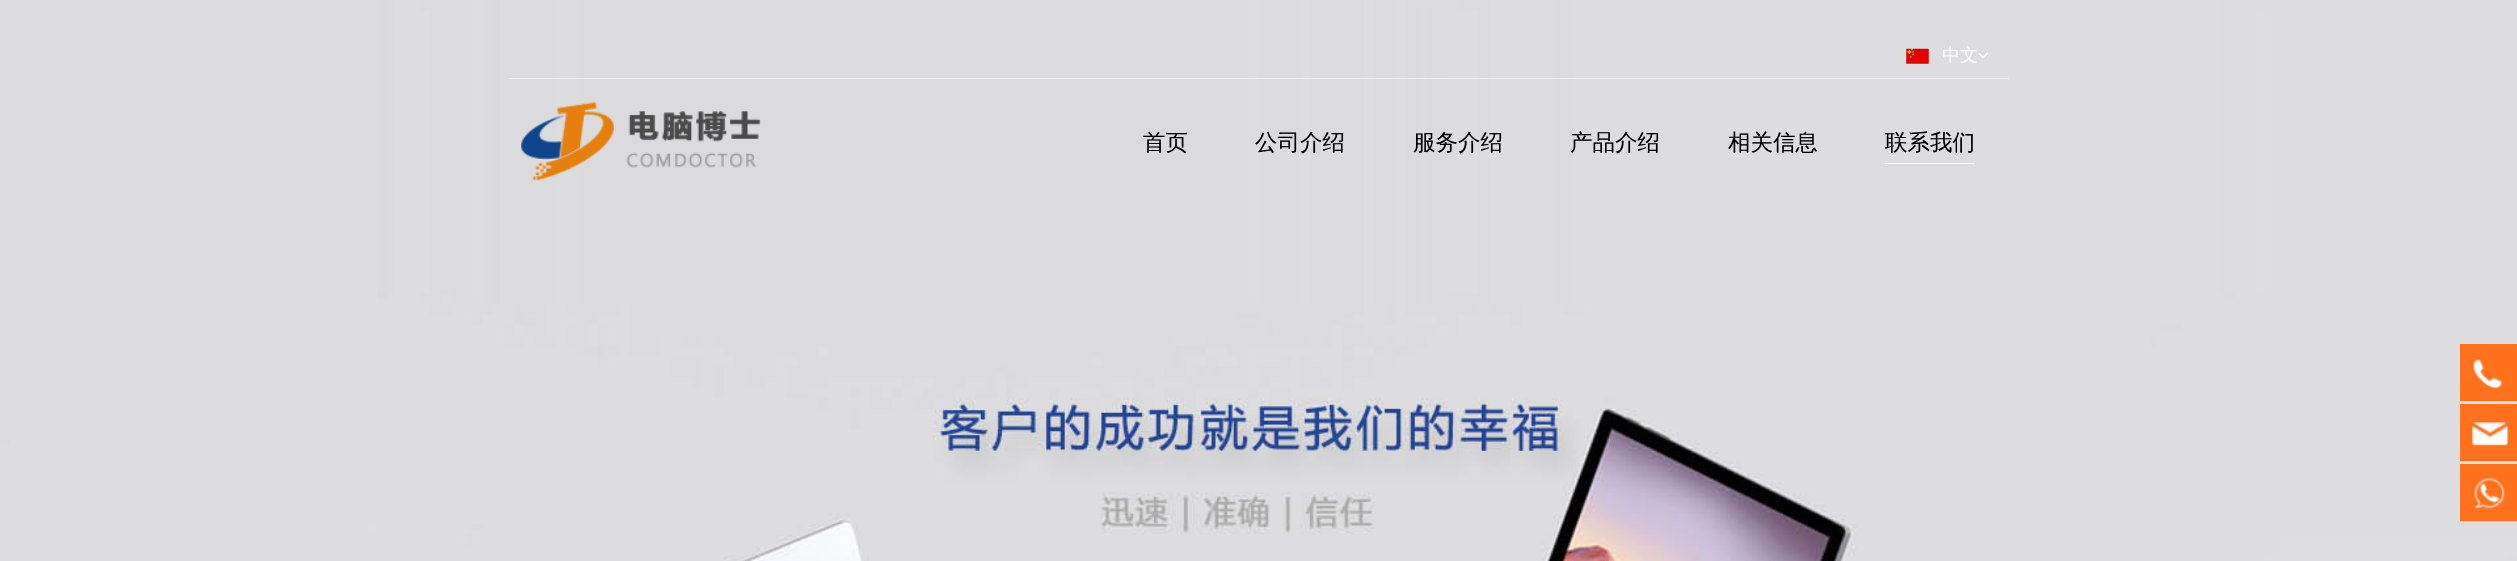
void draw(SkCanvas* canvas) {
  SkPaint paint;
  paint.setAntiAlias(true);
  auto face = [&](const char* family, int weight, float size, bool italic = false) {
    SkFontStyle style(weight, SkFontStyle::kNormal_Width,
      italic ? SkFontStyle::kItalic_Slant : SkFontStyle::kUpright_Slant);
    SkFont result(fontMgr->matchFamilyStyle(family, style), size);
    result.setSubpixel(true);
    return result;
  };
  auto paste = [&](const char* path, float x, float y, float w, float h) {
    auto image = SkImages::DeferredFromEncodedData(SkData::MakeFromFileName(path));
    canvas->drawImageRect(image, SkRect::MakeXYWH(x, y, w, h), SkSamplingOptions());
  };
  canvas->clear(0xffffffff);
  paste("img/1.png", 0, 0, 2517, 561);
  paint.setColor(0x80ffffff);
  canvas->drawRect(SkRect::MakeXYWH(509, 78, 1500, 1), paint);
  paste("img/2.png", 1906, 48, 23, 16);
  paste("img/3.png", 1978, 52, 10, 6);
  paste("img/4.png", 521, 102, 240, 79);
  paint.setColor(0xffffffff);
  canvas->drawRect(SkRect::MakeXYWH(1885, 163, 90, 1), paint);
  paint.setColor(0xffff711d);
  canvas->drawRect(SkRect::MakeXYWH(2460, 344, 57, 57), paint);
  paste("img/5.png", 2473, 359, 30, 30);
  canvas->drawRect(SkRect::MakeXYWH(2460, 404, 57, 57), paint);
  paste("img/6.png", 2472, 422, 37, 24);
  canvas->drawRect(SkRect::MakeXYWH(2460, 464, 57, 57), paint);
  paste("img/7.png", 2474, 478, 31, 31);
  auto f0 = face("WenQuanYi Zen Hei", 500, 18);
  paint.setColor(0xffffffff);
  canvas->drawString("中文", 1942, 61, f0, paint);
  auto f1 = face("WenQuanYi Zen Hei", 500, 22.5f);
  paint.setColor(0xff000000);
  {
    const struct { const char* s; float x, y; } items[] = {
      {"首页", 1143, 150},
      {"公司介绍", 1255, 150},
      {"服务介绍", 1413, 150},
      {"产品介绍", 1570, 150},
      {"相关信息", 1728, 150},
      {"联系我们", 1885, 150},
    };
    for (auto [s, x, y] : items) {
      canvas->drawString(s, x, y, f1, paint);
    }
  }
}
